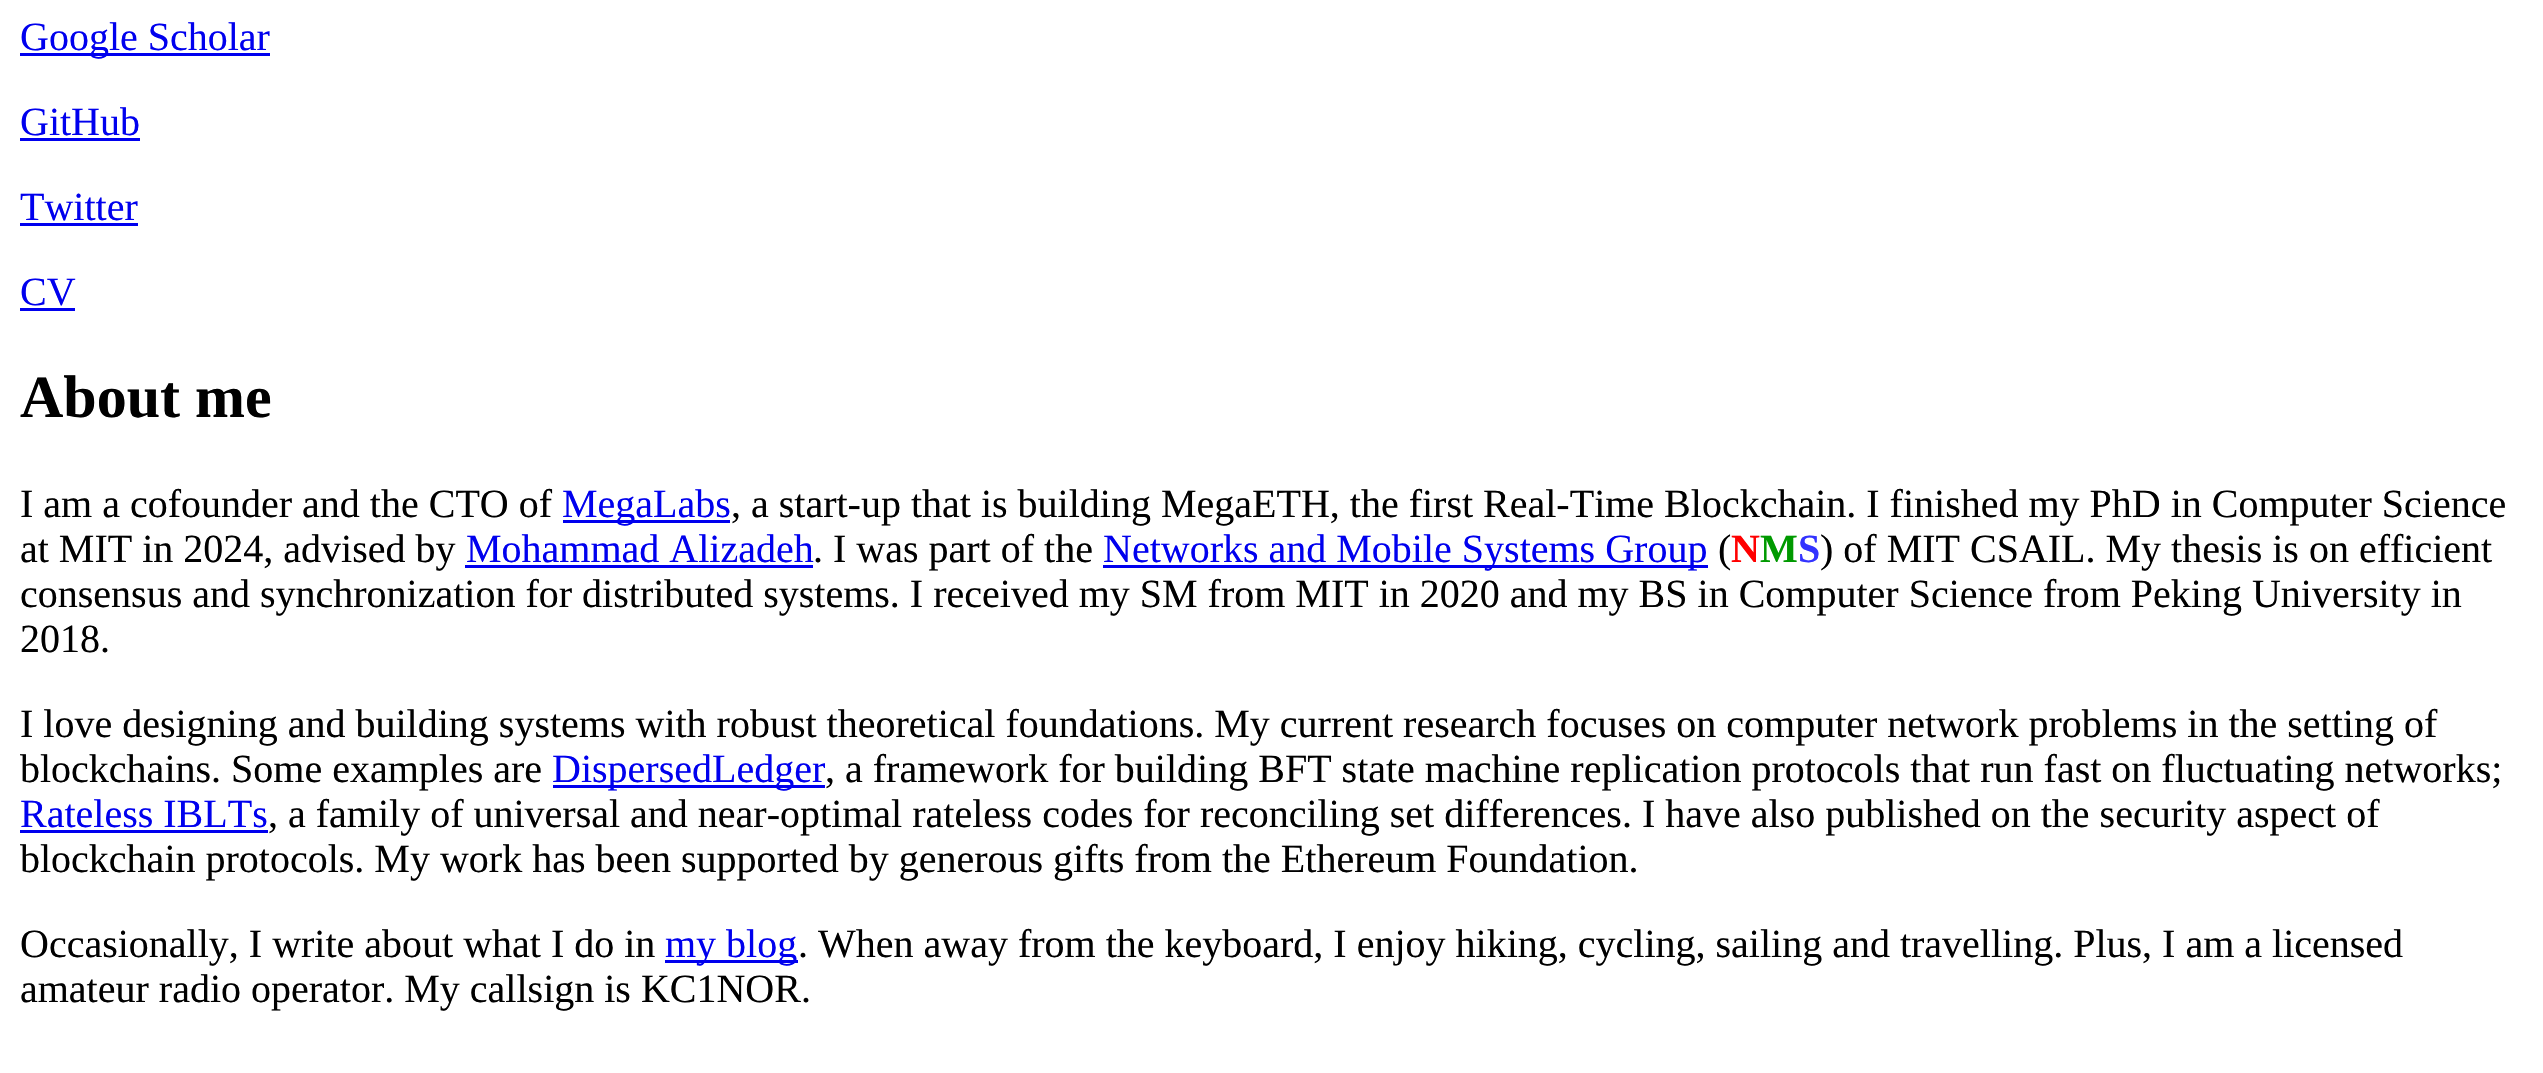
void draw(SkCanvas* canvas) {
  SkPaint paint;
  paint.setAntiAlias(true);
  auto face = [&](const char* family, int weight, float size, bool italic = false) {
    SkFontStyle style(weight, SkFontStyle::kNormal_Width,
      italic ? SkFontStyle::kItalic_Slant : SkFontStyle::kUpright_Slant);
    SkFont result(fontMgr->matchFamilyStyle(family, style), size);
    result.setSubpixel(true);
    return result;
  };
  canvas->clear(0xffffffff);
  {
    const struct { float x, y, w, h; SkColor color; } items[] = {
      {20, 53, 250, 3, 0xff0000ee},
      {20, 138, 120, 3, 0xff0000ee},
      {20, 223, 118, 3, 0xff0000ee},
      {20, 308, 55, 3, 0xff0000ee},
      {563, 520, 167, 3, 0xff0000ee},
      {465, 565, 348, 3, 0xff0000ee},
      {1103, 565, 605, 3, 0xff0000ee},
      {553, 785, 272, 3, 0xff0000ee},
      {20, 830, 248, 3, 0xff0000ee},
      {665, 960, 133, 3, 0xff0000ee},
    };
    for (auto [x, y, w, h, color] : items) {
      paint.setColor(color);
      canvas->drawRect(SkRect::MakeXYWH(x, y, w, h), paint);
    }
  }
  auto f0 = face("Liberation Serif", 400, 40);
  {
    const struct { const char* s; float x, y; } items[] = {
      {"Google Scholar", 20, 50},
      {"GitHub", 20, 135},
      {"Twitter", 20, 220},
      {"CV", 20, 305},
    };
    for (auto [s, x, y] : items) {
      canvas->drawString(s, x, y, f0, paint);
    }
  }
  auto f1 = face("Liberation Serif", 700, 60);
  paint.setColor(0xff000000);
  canvas->drawString("About me", 20, 417, f1, paint);
  canvas->drawString("I am a cofounder and the CTO of", 20, 517, f0, paint);
  paint.setColor(0xff0000ee);
  canvas->drawString("MegaLabs", 562, 517, f0, paint);
  paint.setColor(0xff000000);
  canvas->drawString(", a start-up that is building MegaETH, the first Real-Time Blockchain. I finished my PhD in Computer Science", 731, 517, f0, paint);
  canvas->drawString("at MIT in 2024, advised by", 20, 562, f0, paint);
  paint.setColor(0xff0000ee);
  canvas->drawString("Mohammad Alizadeh", 466, 562, f0, paint);
  paint.setColor(0xff000000);
  canvas->drawString(". I was part of the", 813, 562, f0, paint);
  paint.setColor(0xff0000ee);
  canvas->drawString("Networks and Mobile Systems Group", 1103, 562, f0, paint);
  paint.setColor(0xff000000);
  canvas->drawString("(", 1718, 562, f0, paint);
  auto f2 = face("Liberation Serif", 700, 40);
  paint.setColor(0xffff0000);
  canvas->drawString("N", 1731, 562, f2, paint);
  paint.setColor(0xff009900);
  canvas->drawString("M", 1760, 562, f2, paint);
  paint.setColor(0xff3333ff);
  canvas->drawString("S", 1798, 562, f2, paint);
  paint.setColor(0xff000000);
  {
    const struct { const char* s; float x, y; } items[] = {
      {") of MIT CSAIL. My thesis is on efficient", 1820, 562},
      {"consensus and synchronization for distributed systems. I received my SM from MIT in 2020 and my BS in Computer Science from Peking University in", 20, 607},
      {"2018.", 20, 652},
      {"I love designing and building systems with robust theoretical foundations. My current research focuses on computer network problems in the setting of", 20, 737},
      {"blockchains. Some examples are", 20, 782},
    };
    for (auto [s, x, y] : items) {
      canvas->drawString(s, x, y, f0, paint);
    }
  }
  paint.setColor(0xff0000ee);
  canvas->drawString("DispersedLedger", 552, 782, f0, paint);
  paint.setColor(0xff000000);
  canvas->drawString(", a framework for building BFT state machine replication protocols that run fast on fluctuating networks;", 825, 782, f0, paint);
  paint.setColor(0xff0000ee);
  canvas->drawString("Rateless IBLTs", 20, 827, f0, paint);
  paint.setColor(0xff000000);
  {
    const struct { const char* s; float x, y; } items[] = {
      {", a family of universal and near-optimal rateless codes for reconciling set differences. I have also published on the security aspect of", 268, 827},
      {"blockchain protocols. My work has been supported by generous gifts from the Ethereum Foundation.", 20, 872},
      {"Occasionally, I write about what I do in", 20, 957},
    };
    for (auto [s, x, y] : items) {
      canvas->drawString(s, x, y, f0, paint);
    }
  }
  paint.setColor(0xff0000ee);
  canvas->drawString("my blog", 665, 957, f0, paint);
  paint.setColor(0xff000000);
  canvas->drawString(". When away from the keyboard, I enjoy hiking, cycling, sailing and travelling. Plus, I am a licensed", 798, 957, f0, paint);
  canvas->drawString("amateur radio operator. My callsign is KC1NOR.", 20, 1002, f0, paint);
}
